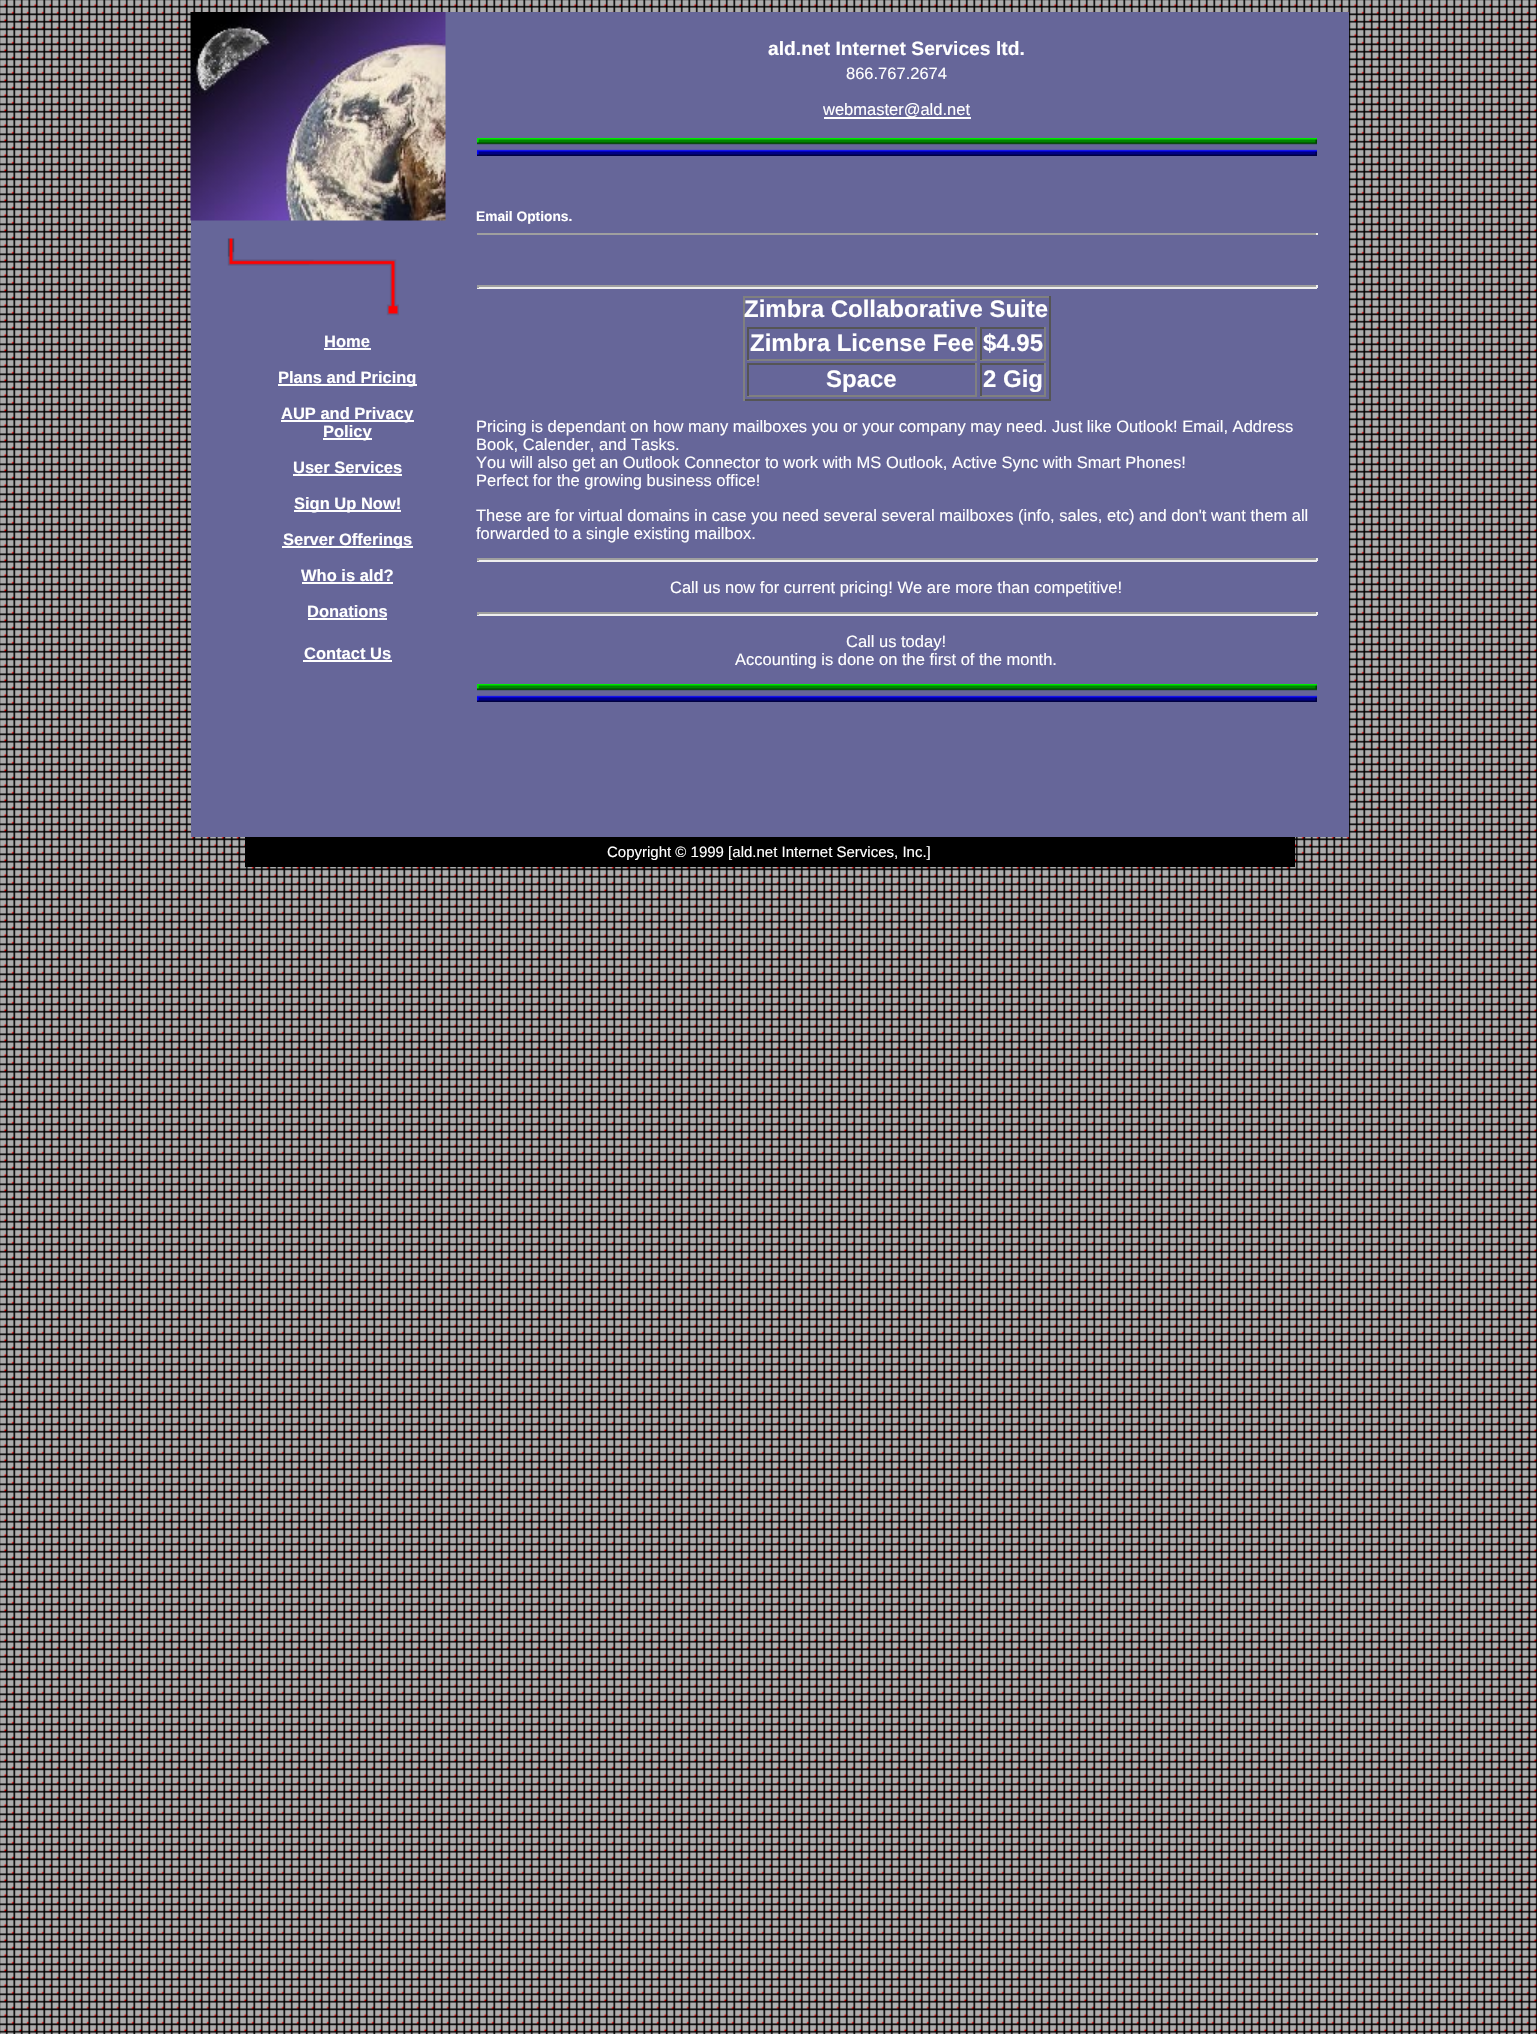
void draw(SkCanvas* canvas) {
  SkPaint paint;
  paint.setAntiAlias(true);
  auto face = [&](const char* family, int weight, float size, bool italic = false) {
    SkFontStyle style(weight, SkFontStyle::kNormal_Width,
      italic ? SkFontStyle::kItalic_Slant : SkFontStyle::kUpright_Slant);
    SkFont result(fontMgr->matchFamilyStyle(family, style), size);
    result.setSubpixel(true);
    return result;
  };
  auto paste = [&](const char* path, float x, float y, float w, float h) {
    auto image = SkImages::DeferredFromEncodedData(SkData::MakeFromFileName(path));
    canvas->drawImageRect(image, SkRect::MakeXYWH(x, y, w, h), SkSamplingOptions());
  };
  canvas->clear(0xffffffff);
  paste("img/1.png", 0, 0, 1537, 2034);
  paint.setColor(0xff666699);
  canvas->drawRect(SkRect::MakeXYWH(191, 12, 1158, 825), paint);
  paint.setColor(0xffffffff);
  canvas->drawRect(SkRect::MakeXYWH(824, 117, 147, 2), paint);
  paste("img/2.png", 190, 12, 256, 209);
  paste("img/3.png", 190, 238, 209, 82);
  {
    const struct { float x, y, w, h; SkColor color; } items[] = {
      {324, 348, 47, 2, 0xffffffff},
      {278, 384, 139, 2, 0xffffffff},
      {281, 420, 133, 2, 0xffffffff},
      {323, 438, 49, 2, 0xffffffff},
      {293, 474, 109, 2, 0xffffffff},
      {294, 510, 107, 2, 0xffffffff},
      {282, 546, 131, 2, 0xffffffff},
      {302, 582, 91, 2, 0xffffffff},
      {308, 618, 79, 2, 0xffffffff},
      {303, 660, 89, 2, 0xffffffff},
    };
    for (auto [x, y, w, h, color] : items) {
      paint.setColor(color);
      canvas->drawRect(SkRect::MakeXYWH(x, y, w, h), paint);
    }
  }
  paste("img/4.png", 477, 138, 840, 18);
  {
    const struct { float x, y, w, h; SkColor color; } items[] = {
      {477, 233, 840, 2, 0xff9f9f9f},
      {1316, 233, 2, 2, 0xffeeeeee},
      {477, 285, 840, 2, 0xff9f9f9f},
      {1316, 285, 2, 3, 0xffeeeeee},
      {477, 287, 840, 2, 0xffeeeeee},
      {477, 285, 2, 3, 0xff9f9f9f},
      {743, 296, 307, 2, 0xff808080},
      {1049, 296, 2, 105, 0xff555555},
      {743, 399, 307, 2, 0xff555555},
      {743, 296, 2, 105, 0xff808080},
      {747, 327, 230, 2, 0xff555555},
      {975, 327, 2, 33, 0xff808080},
      {747, 359, 230, 2, 0xff808080},
      {747, 327, 2, 33, 0xff555555},
      {980, 327, 66, 2, 0xff555555},
      {1044, 327, 2, 33, 0xff808080},
      {980, 359, 66, 2, 0xff808080},
      {980, 327, 2, 33, 0xff555555},
      {747, 363, 230, 2, 0xff555555},
      {975, 363, 2, 33, 0xff808080},
      {747, 395, 230, 2, 0xff808080},
      {747, 363, 2, 33, 0xff555555},
      {980, 363, 66, 2, 0xff555555},
      {1044, 363, 2, 33, 0xff808080},
      {980, 395, 66, 2, 0xff808080},
      {980, 363, 2, 33, 0xff555555},
      {477, 558, 840, 2, 0xff9f9f9f},
      {1316, 558, 2, 3, 0xffeeeeee},
      {477, 560, 840, 2, 0xffeeeeee},
      {477, 558, 2, 3, 0xff9f9f9f},
      {477, 612, 840, 2, 0xff9f9f9f},
      {1316, 612, 2, 3, 0xffeeeeee},
      {477, 614, 840, 2, 0xffeeeeee},
      {477, 612, 2, 3, 0xff9f9f9f},
    };
    for (auto [x, y, w, h, color] : items) {
      paint.setColor(color);
      canvas->drawRect(SkRect::MakeXYWH(x, y, w, h), paint);
    }
  }
  paste("img/4.png", 477, 684, 840, 18);
  paint.setColor(0xff000000);
  canvas->drawRect(SkRect::MakeXYWH(245, 837, 1050, 30), paint);
  auto f0 = face("Liberation Sans", 700, 19.25f);
  paint.setColor(0xffffffff);
  canvas->drawString("ald.net Internet Services ltd.", 768, 55, f0, paint);
  auto f1 = face("Liberation Sans", 400, 16.5f);
  canvas->drawString("866.767.2674", 846, 79, f1, paint);
  canvas->drawString("webmaster@ald.net", 823, 115, f1, paint);
  auto f2 = face("Liberation Sans", 700, 16.5f);
  {
    const struct { const char* s; float x, y; } items[] = {
      {"Home", 324, 347},
      {"Plans and Pricing", 278, 383},
      {"AUP and Privacy", 281, 419},
      {"Policy", 323, 437},
      {"User Services", 293, 473},
      {"Sign Up Now!", 294, 509},
      {"Server Offerings", 283, 545},
      {"Who is ald?", 301, 581},
      {"Donations", 307, 617},
      {"Contact Us", 304, 659},
    };
    for (auto [s, x, y] : items) {
      canvas->drawString(s, x, y, f2, paint);
    }
  }
  auto f3 = face("Liberation Sans", 700, 13.75f);
  canvas->drawString("Email Options.", 476, 221, f3, paint);
  auto f4 = face("Liberation Sans", 700, 24);
  {
    const struct { const char* s; float x, y; } items[] = {
      {"Zimbra Collaborative Suite", 744, 317},
      {"Zimbra License Fee", 750, 351},
      {"$4.95", 983, 351},
      {"Space", 826, 387},
      {"2 Gig", 983, 387},
    };
    for (auto [s, x, y] : items) {
      canvas->drawString(s, x, y, f4, paint);
    }
  }
  {
    const struct { const char* s; float x, y; } items[] = {
      {"Pricing is dependant on how many mailboxes you or your company may need. Just like Outlook! Email, Address", 476, 432},
      {"Book, Calender, and Tasks.", 476, 450},
      {"You will also get an Outlook Connector to work with MS Outlook, Active Sync with Smart Phones!", 476, 468},
      {"Perfect for the growing business office!", 476, 486},
      {"These are for virtual domains in case you need several several mailboxes (info, sales, etc) and don't want them all", 476, 521},
      {"forwarded to a single existing mailbox.", 476, 539},
      {"Call us now for current pricing! We are more than competitive!", 670, 593},
      {"Call us today!", 846, 647},
      {"Accounting is done on the first of the month.", 735, 665},
    };
    for (auto [s, x, y] : items) {
      canvas->drawString(s, x, y, f1, paint);
    }
  }
  auto f5 = face("Liberation Sans", 400, 15);
  canvas->drawString("Copyright © 1999 [ald.net Internet Services, Inc.]", 607, 857, f5, paint);
}
